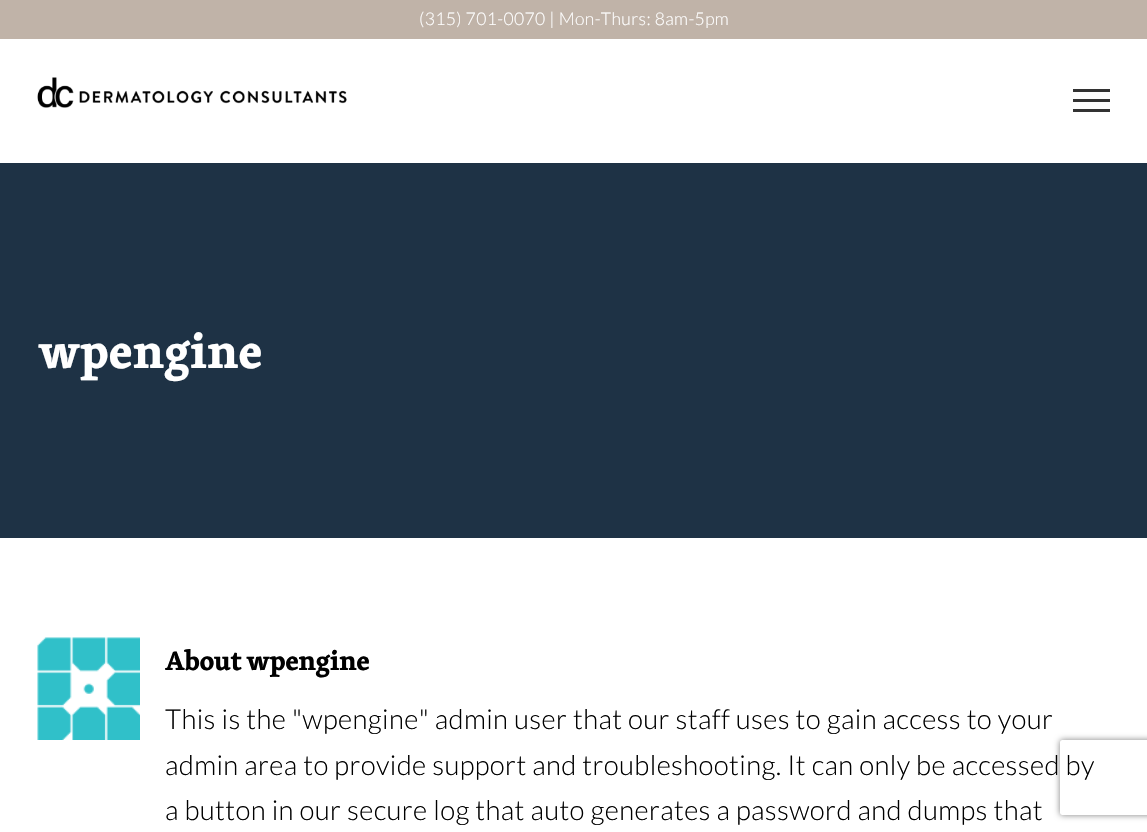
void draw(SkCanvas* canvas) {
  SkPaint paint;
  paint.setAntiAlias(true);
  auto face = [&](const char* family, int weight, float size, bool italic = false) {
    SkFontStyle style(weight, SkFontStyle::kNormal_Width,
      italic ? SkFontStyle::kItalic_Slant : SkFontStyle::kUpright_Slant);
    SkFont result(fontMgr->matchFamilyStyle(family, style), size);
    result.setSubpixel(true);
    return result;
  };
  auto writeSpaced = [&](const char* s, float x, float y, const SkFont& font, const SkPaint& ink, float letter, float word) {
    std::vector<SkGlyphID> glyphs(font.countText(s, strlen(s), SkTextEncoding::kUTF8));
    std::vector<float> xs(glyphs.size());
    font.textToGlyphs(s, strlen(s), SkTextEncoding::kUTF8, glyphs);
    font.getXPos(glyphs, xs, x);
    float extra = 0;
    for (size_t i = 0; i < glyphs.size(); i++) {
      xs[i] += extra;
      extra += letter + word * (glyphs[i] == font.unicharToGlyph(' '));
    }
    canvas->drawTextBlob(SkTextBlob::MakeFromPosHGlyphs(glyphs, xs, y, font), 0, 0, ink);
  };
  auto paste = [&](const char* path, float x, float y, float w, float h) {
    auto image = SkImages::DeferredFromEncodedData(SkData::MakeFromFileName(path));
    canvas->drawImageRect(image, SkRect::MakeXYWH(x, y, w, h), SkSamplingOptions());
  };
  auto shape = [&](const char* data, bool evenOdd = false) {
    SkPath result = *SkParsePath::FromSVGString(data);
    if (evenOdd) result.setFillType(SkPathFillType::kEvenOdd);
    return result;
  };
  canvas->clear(0xffffffff);
  paint.setColor(0xffc0b3a8);
  canvas->drawRect(SkRect::MakeXYWH(0, 0, 1147, 39), paint);
  paste("img/1.png", 37, 77, 310, 31);
  {
    const struct { float x, y, w, h; SkColor color; } items[] = {
      {1073, 89, 37, 3, 0xff333333},
      {1073, 99, 37, 3, 0xff333333},
      {1073, 109, 37, 3, 0xff333333},
      {0, 163, 1147, 375, 0xff1e3245},
    };
    for (auto [x, y, w, h, color] : items) {
      paint.setColor(color);
      canvas->drawRect(SkRect::MakeXYWH(x, y, w, h), paint);
    }
  }
  paste("img/2.png", 37, 637, 103, 103);
  canvas->save();
  canvas->clipPath(shape("M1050 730H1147V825H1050ZM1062.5 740H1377.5C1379 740 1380 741 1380 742.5V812.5C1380 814 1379 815 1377.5 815H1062.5C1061 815 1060 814 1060 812.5V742.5C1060 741 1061 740 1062.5 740Z", true), true);
  paint.setColor(0xff808080);
  paint.setMaskFilter(SkMaskFilter::MakeBlur(kNormal_SkBlurStyle, 3));
  canvas->drawRoundRect(SkRect::MakeXYWH(1060, 740, 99, 75), 2.5f, 2.5f, paint);
  paint.setMaskFilter(nullptr);
  canvas->restore();
  auto f0 = face("Lato", 300, 17.5f);
  paint.setColor(0xffffffff);
  writeSpaced("(315) 701-0070 | Mon-Thurs: 8am-5pm", 419, 25, f0, paint, 0.38f, 0);
  auto f1 = face("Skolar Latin", 700, 49);
  writeSpaced("wpengine", 38, 368, f1, paint, -0.25f, 0);
  auto f2 = face("Skolar Latin", 700, 27.5f);
  paint.setColor(0xff000000);
  writeSpaced("About wpengine", 165, 670, f2, paint, -0.5f, 0);
  auto f3 = face("Lato", 300, 27.5f);
  {
    const struct { const char* s; float x, y; } items[] = {
      {"This is the \"wpengine\" admin user that our staff uses to gain access to your", 165, 729},
      {"admin area to provide support and troubleshooting. It can only be accessed by", 165, 775},
      {"a button in our secure log that auto generates a password and dumps that", 165, 820},
    };
    for (auto [s, x, y] : items) {
      writeSpaced(s, x, y, f3, paint, 0.38f, 0);
    }
  }
}
